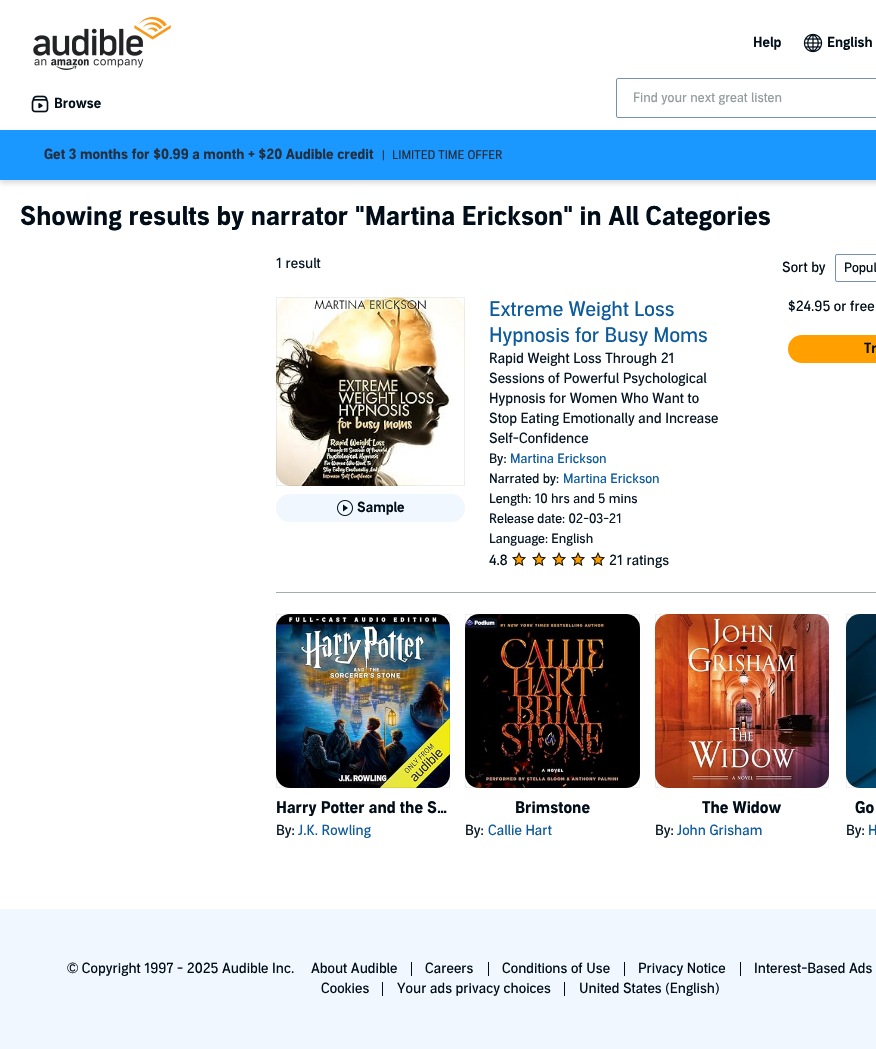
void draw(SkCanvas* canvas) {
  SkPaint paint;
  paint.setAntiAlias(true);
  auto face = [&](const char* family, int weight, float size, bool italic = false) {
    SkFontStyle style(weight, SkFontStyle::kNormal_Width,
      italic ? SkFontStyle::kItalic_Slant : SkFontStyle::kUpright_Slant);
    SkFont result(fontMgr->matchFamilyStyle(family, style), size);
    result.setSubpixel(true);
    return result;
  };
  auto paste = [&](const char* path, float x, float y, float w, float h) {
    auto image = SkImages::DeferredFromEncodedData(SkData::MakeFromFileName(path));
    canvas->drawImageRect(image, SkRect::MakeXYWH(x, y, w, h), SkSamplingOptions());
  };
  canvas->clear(0xffffffff);
  paste("img/1.png", 33, 17, 138, 53);
  paste("img/2.png", 803, 33, 20, 20);
  paste("img/3.png", 31, 95, 18, 18);
  paint.setStroke(true);
  paint.setStrokeWidth(1);
  paint.setColor(0xff7690b2);
  canvas->drawRoundRect(SkRect::MakeXYWH(616.5f, 78.5f, 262, 39), 1.5f, 1.5f, paint);
  paint.setStroke(false);
  paint.setColor(0x26000000);
  paint.setMaskFilter(SkMaskFilter::MakeBlur(kNormal_SkBlurStyle, 2.5f));
  canvas->drawRect(SkRect::MakeXYWH(0, 133, 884, 50), paint);
  paint.setMaskFilter(nullptr);
  paint.setColor(0xff1a98ff);
  canvas->drawRect(SkRect::MakeXYWH(0, 130, 876, 50), paint);
  paint.setStroke(true);
  paint.setColor(0xff7690b2);
  canvas->drawRoundRect(SkRect::MakeXYWH(835.5f, 254.5f, 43, 27), 1.5f, 1.5f, paint);
  paste("img/4.png", 276, 297, 189, 189);
  paint.setColor(0x14212325);
  canvas->drawRect(SkRect::MakeXYWH(276.5f, 297.5f, 188, 188), paint);
  paint.setStroke(false);
  paint.setColor(0xfff1f7fe);
  canvas->drawRoundRect(SkRect::MakeXYWH(276, 494, 189, 28), 14, 14, paint);
  paste("img/5.png", 337, 500, 16, 16);
  paste("img/6.png", 512, 552, 14, 14);
  paste("img/7.png", 512, 552, 14, 14);
  paste("img/6.png", 532, 552, 14, 14);
  paste("img/7.png", 532, 552, 14, 14);
  paste("img/6.png", 552, 552, 14, 14);
  paste("img/7.png", 552, 552, 14, 14);
  paste("img/6.png", 571, 552, 14, 14);
  paste("img/7.png", 571, 552, 14, 14);
  paste("img/6.png", 591, 552, 14, 14);
  paste("img/7.png", 591, 552, 14, 14);
  paint.setColor(0xffffa000);
  canvas->drawRoundRect(SkRect::MakeXYWH(788, 335, 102, 28), 14, 14, paint);
  paint.setColor(0xffa6abaf);
  canvas->drawRect(SkRect::MakeXYWH(276, 592, 600, 1), paint);
  paste("img/8.png", 276, 614, 174, 174);
  paint.setStroke(true);
  paint.setColor(0x14212325);
  canvas->drawRect(SkRect::MakeXYWH(276.5f, 614.5f, 173, 173), paint);
  paste("img/9.png", 465, 614, 175, 174);
  canvas->drawRect(SkRect::MakeXYWH(465.5f, 614.5f, 174, 173), paint);
  paste("img/10.png", 655, 614, 174, 174);
  canvas->drawRect(SkRect::MakeXYWH(655.5f, 614.5f, 173, 173), paint);
  paste("img/11.png", 846, 614, 30, 174);
  canvas->drawRect(SkRect::MakeXYWH(846.5f, 614.5f, 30, 173), paint);
  paint.setStroke(false);
  {
    const struct { float x, y, w, h; SkColor color; } items[] = {
      {0, 909, 876, 140, 0xfff1f7fe},
      {411, 962, 1, 14, 0xff010e19},
      {488, 962, 1, 14, 0xff010e19},
      {624, 962, 1, 14, 0xff010e19},
      {740, 962, 1, 14, 0xff010e19},
      {382, 982, 1, 14, 0xff010e19},
      {564, 982, 1, 14, 0xff010e19},
    };
    for (auto [x, y, w, h, color] : items) {
      paint.setColor(color);
      canvas->drawRect(SkRect::MakeXYWH(x, y, w, h), paint);
    }
  }
  auto f0 = face("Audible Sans", 600, 14);
  {
    const struct { const char* s; float x, y; } items[] = {
      {"Help", 753, 47},
      {"English", 827, 47},
      {"Browse", 54, 108},
    };
    for (auto [s, x, y] : items) {
      canvas->drawString(s, x, y, f0, paint);
    }
  }
  auto f1 = face("Audible Sans", 400, 13);
  paint.setColor(0xff949c9e);
  canvas->drawString("Find your next great listen", 633, 102, f1, paint);
  auto f2 = face("Audible Sans", 700, 14);
  paint.setColor(0xff232f3e);
  canvas->drawString("Get 3 months for $0.99 a month + $20 Audible credit", 44, 159, f2, paint);
  auto f3 = face("Audible Sans", 400, 12);
  canvas->drawString("|", 382, 159, f3, paint);
  canvas->drawString("LIMITED TIME OFFER", 392, 159, f3, paint);
  auto f4 = face("Audible Sans", 700, 26);
  paint.setColor(0xff010e19);
  canvas->drawString("Showing results by narrator \"Martina Erickson\" in All Categories", 20, 225, f4, paint);
  auto f5 = face("Audible Sans", 400, 14);
  paint.setColor(0xff061624);
  canvas->drawString("1 result", 276, 268, f5, paint);
  paint.setColor(0xff010e19);
  canvas->drawString("Sort by", 782, 272, f5, paint);
  canvas->drawString("Popul", 844, 272, f1, paint);
  canvas->drawString("Sample", 357, 512, f0, paint);
  auto f6 = face("Audible Sans", 400, 20);
  paint.setColor(0xff0e5b9b);
  canvas->drawString("Extreme Weight Loss", 489, 316, f6, paint);
  canvas->drawString("Hypnosis for Busy Moms", 489, 342, f6, paint);
  paint.setColor(0xff061624);
  {
    const struct { const char* s; float x, y; } items[] = {
      {"Rapid Weight Loss Through 21", 489, 363},
      {"Sessions of Powerful Psychological", 489, 383},
      {"Hypnosis for Women Who Want to", 489, 403},
      {"Stop Eating Emotionally and Increase", 489, 423},
      {"Self-Confidence", 489, 443},
    };
    for (auto [s, x, y] : items) {
      canvas->drawString(s, x, y, f5, paint);
    }
  }
  canvas->drawString("By:", 489, 463, f1, paint);
  paint.setColor(0xff0e5b9b);
  canvas->drawString("Martina Erickson", 510, 463, f1, paint);
  paint.setColor(0xff061624);
  canvas->drawString("Narrated by:", 489, 483, f1, paint);
  paint.setColor(0xff0e5b9b);
  canvas->drawString("Martina Erickson", 563, 483, f1, paint);
  paint.setColor(0xff061624);
  {
    const struct { const char* s; float x, y; } items[] = {
      {"Length: 10 hrs and 5 mins", 489, 503},
      {"Release date: 02-03-21", 489, 523},
      {"Language: English", 489, 543},
    };
    for (auto [s, x, y] : items) {
      canvas->drawString(s, x, y, f1, paint);
    }
  }
  paint.setColor(0xff010e19);
  canvas->drawString("4.8", 489, 565, f5, paint);
  paint.setColor(0xff061624);
  canvas->drawString("21 ratings", 609, 565, f5, paint);
  paint.setColor(0xff010e19);
  canvas->drawString("$24.95 or free", 788, 311, f5, paint);
  canvas->drawString("Tr", 864, 353, f0, paint);
  auto f7 = face("Audible Sans", 700, 16);
  canvas->drawString("Harry Potter and the S…", 276, 813, f7, paint);
  paint.setColor(0xff061624);
  canvas->drawString("By:", 276, 835, f5, paint);
  paint.setColor(0xff0e5b9b);
  canvas->drawString("J.K. Rowling", 298, 835, f5, paint);
  paint.setColor(0xff010e19);
  canvas->drawString("Brimstone", 515, 813, f7, paint);
  paint.setColor(0xff061624);
  canvas->drawString("By:", 465, 835, f5, paint);
  paint.setColor(0xff0e5b9b);
  canvas->drawString("Callie Hart", 488, 835, f5, paint);
  paint.setColor(0xff010e19);
  canvas->drawString("The Widow", 702, 813, f7, paint);
  paint.setColor(0xff061624);
  canvas->drawString("By:", 655, 835, f5, paint);
  paint.setColor(0xff0e5b9b);
  canvas->drawString("John Grisham", 677, 835, f5, paint);
  paint.setColor(0xff010e19);
  canvas->drawString("Go", 855, 813, f7, paint);
  paint.setColor(0xff061624);
  canvas->drawString("By:", 846, 835, f5, paint);
  paint.setColor(0xff0e5b9b);
  canvas->drawString("H", 868, 835, f5, paint);
  paint.setColor(0xff010e19);
  {
    const struct { const char* s; float x, y; } items[] = {
      {"© Copyright 1997 - 2025 Audible Inc.", 67, 973},
      {"About Audible", 311, 973},
      {"Careers", 425, 973},
      {"Conditions of Use", 502, 973},
      {"Privacy Notice", 638, 973},
      {"Interest-Based Ads", 754, 973},
      {"Cookies", 321, 993},
      {"Your ads privacy choices", 397, 993},
      {"United States (English)", 579, 993},
    };
    for (auto [s, x, y] : items) {
      canvas->drawString(s, x, y, f5, paint);
    }
  }
}
